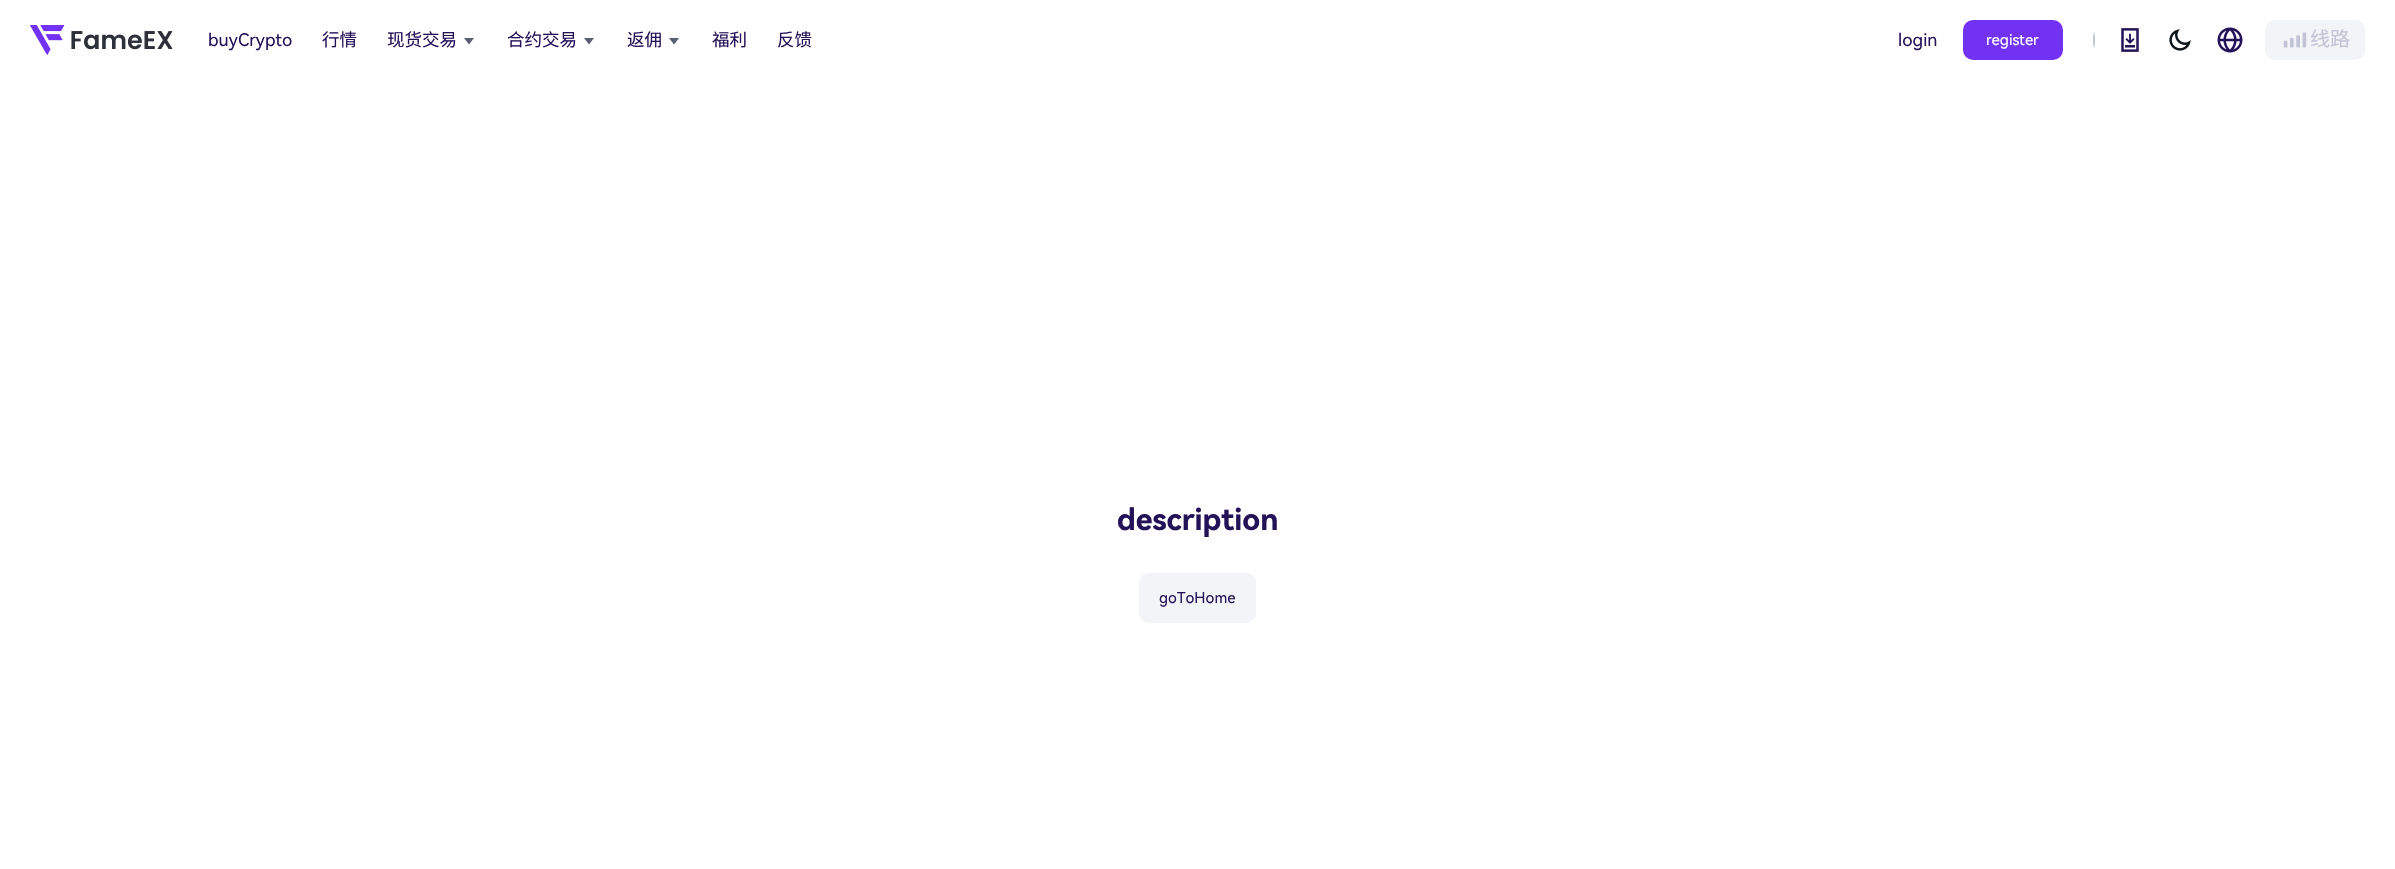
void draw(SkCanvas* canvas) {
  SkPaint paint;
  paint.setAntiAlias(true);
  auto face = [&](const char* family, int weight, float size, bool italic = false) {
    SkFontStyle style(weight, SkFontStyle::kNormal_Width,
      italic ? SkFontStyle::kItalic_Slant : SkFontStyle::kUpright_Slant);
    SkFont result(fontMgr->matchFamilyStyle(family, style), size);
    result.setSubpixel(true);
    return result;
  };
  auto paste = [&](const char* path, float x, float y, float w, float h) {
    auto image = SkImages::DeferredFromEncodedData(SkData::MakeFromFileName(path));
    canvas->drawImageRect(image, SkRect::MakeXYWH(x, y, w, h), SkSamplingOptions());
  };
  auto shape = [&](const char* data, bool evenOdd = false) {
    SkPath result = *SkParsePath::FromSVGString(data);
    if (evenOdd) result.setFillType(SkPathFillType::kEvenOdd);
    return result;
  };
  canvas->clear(0xffffffff);
  paste("img/1.png", 30, 25, 143, 30);
  paint.setColor(0xff5a5e72);
  canvas->drawPath(shape("M464 38L469 44.5L474 38Z", true), paint);
  canvas->drawPath(shape("M584 38L589 44.5L594 38Z", true), paint);
  canvas->drawPath(shape("M669 38L674 44.5L679 38Z", true), paint);
  paint.setColor(0xff7132f4);
  canvas->drawRoundRect(SkRect::MakeXYWH(1963, 20, 100, 40), 10, 10, paint);
  paint.setColor(0xffc2c5d6);
  canvas->drawOval(SkRect::MakeXYWH(2093, 32.5f, 2, 15), paint);
  paste("img/2.png", 2121, 28, 18, 24);
  paste("img/3.png", 2169, 29, 22, 22);
  paste("img/4.png", 2217, 27, 26, 26);
  paint.setColor(0xfff3f4f7);
  canvas->drawRoundRect(SkRect::MakeXYWH(2265, 20, 100, 40), 10, 10, paint);
  paste("img/5.png", 2283, 32, 24, 16);
  canvas->drawRoundRect(SkRect::MakeXYWH(1139, 573, 117, 50), 10, 10, paint);
  auto f0 = face("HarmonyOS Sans", 400, 17.5f);
  paint.setColor(0xff241259);
  canvas->drawString("buyCrypto", 208, 46, f0, paint);
  auto f1 = face("Noto Sans CJK SC", 400, 17.5f);
  {
    const struct { const char* s; float x, y; } items[] = {
      {"行情", 322, 46},
      {"现货交易", 387, 46},
      {"合约交易", 507, 46},
      {"返佣", 627, 46},
      {"福利", 712, 46},
      {"反馈", 777, 46},
    };
    for (auto [s, x, y] : items) {
      canvas->drawString(s, x, y, f1, paint);
    }
  }
  canvas->drawString("login", 1898, 46, f0, paint);
  auto f2 = face("HarmonyOS Sans", 400, 15);
  paint.setColor(0xffffffff);
  canvas->drawString("register", 1986, 45, f2, paint);
  auto f3 = face("Noto Sans CJK SC", 400, 20);
  paint.setColor(0xffc2c5d6);
  canvas->drawString("线路", 2310, 46, f3, paint);
  auto f4 = face("HarmonyOS Sans", 700, 30);
  paint.setColor(0xff241259);
  canvas->drawString("description", 1117, 530, f4, paint);
  canvas->drawString("goToHome", 1159, 603, f2, paint);
}
